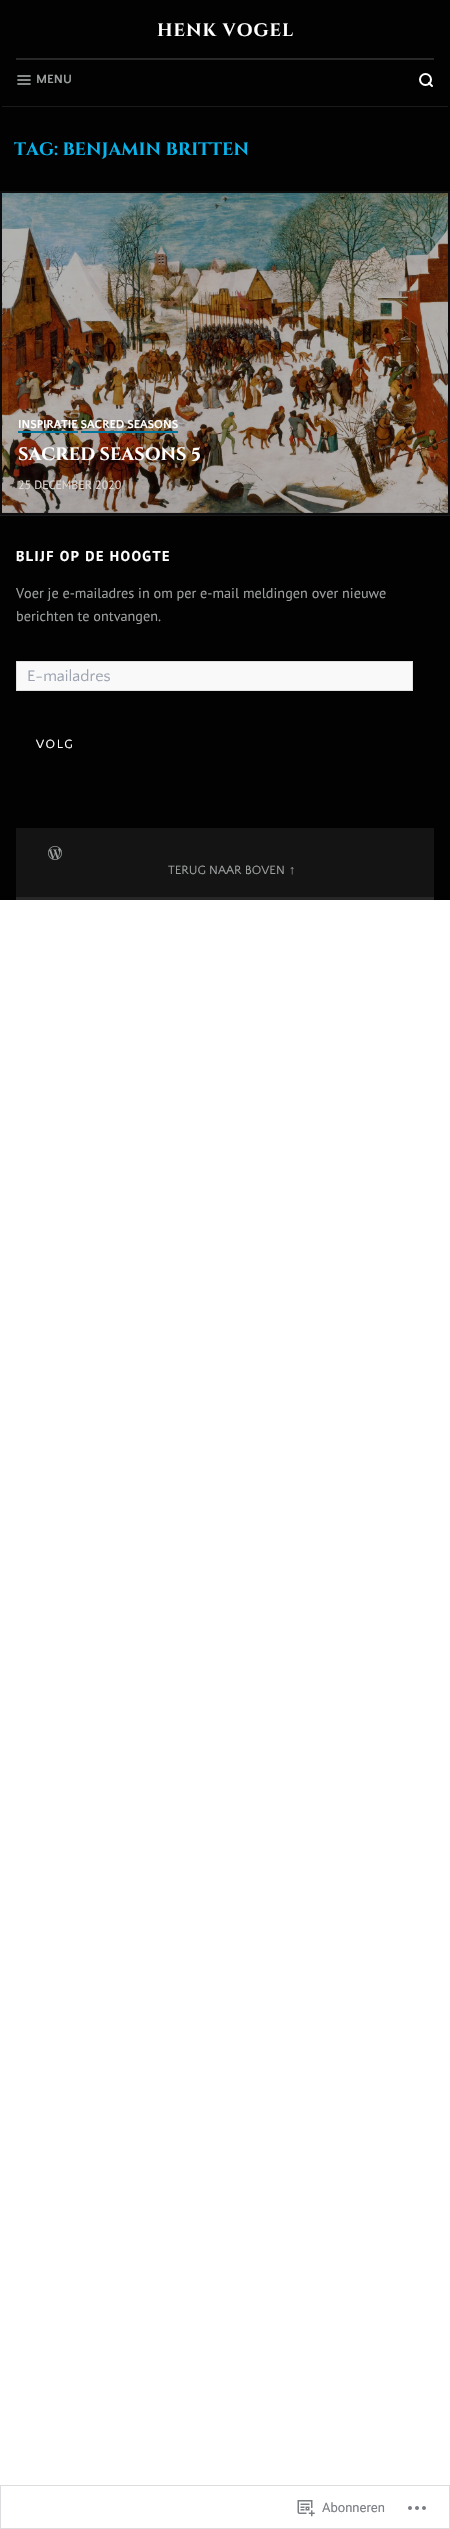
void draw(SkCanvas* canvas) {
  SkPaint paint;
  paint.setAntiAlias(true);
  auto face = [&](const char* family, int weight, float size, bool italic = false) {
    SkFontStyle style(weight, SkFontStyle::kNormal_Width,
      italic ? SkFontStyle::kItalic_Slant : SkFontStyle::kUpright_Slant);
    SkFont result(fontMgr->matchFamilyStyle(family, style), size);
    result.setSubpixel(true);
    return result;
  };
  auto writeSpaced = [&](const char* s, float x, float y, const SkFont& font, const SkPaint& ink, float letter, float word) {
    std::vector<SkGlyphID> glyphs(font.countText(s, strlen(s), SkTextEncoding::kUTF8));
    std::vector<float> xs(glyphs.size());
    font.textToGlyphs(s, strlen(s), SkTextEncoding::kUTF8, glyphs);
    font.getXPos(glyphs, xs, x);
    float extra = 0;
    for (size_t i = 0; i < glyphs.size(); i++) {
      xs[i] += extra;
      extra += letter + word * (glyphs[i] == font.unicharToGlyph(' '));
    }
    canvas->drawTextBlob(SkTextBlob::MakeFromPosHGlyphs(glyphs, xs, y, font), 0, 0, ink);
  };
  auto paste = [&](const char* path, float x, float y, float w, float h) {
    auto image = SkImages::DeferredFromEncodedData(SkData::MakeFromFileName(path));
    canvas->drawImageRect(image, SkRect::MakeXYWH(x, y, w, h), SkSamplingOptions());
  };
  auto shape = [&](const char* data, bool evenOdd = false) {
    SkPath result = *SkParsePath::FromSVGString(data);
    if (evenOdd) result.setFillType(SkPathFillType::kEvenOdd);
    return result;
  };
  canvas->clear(0xffffffff);
  paint.setColor(0xff020202);
  canvas->drawRect(SkRect::MakeXYWH(0, 0, 450, 191), paint);
  paint.setColor(0xff282828);
  canvas->drawRect(SkRect::MakeXYWH(16, 58, 418, 2), paint);
  paste("img/1.png", 17, 75, 14, 10);
  paint.setStroke(true);
  paint.setStrokeWidth(2);
  paint.setColor(0xffffffff);
  canvas->drawCircle(425.5f, 79.5f, 5.5f, paint);
  paint.setStrokeCap(SkPaint::kRound_Cap);
  paint.setStrokeJoin(SkPaint::kRound_Join);
  canvas->drawPath(shape("M432 86L429 83"), paint);
  paint.setStroke(false);
  paint.setColor(0xff1b1b1b);
  canvas->drawRect(SkRect::MakeXYWH(2, 106, 446, 1), paint);
  paint.setStroke(true);
  paint.setStrokeCap(SkPaint::kButt_Cap);
  paint.setStrokeJoin(SkPaint::kMiter_Join);
  paint.setColor(0xff0c0c0e);
  canvas->drawRect(SkRect::MakeXYWH(1, 192, 448, 322), paint);
  paste("img/2.png", 2, 193, 446, 320);
  paint.setStroke(false);
  {
    const struct { float x, y, w, h; SkColor color; } items[] = {
      {18, 431, 60, 2, 0xff00769e},
      {81, 431, 97, 2, 0xff00769e},
      {0, 516, 450, 384, 0xff020202},
      {0, 515, 450, 1, 0xff1b1b1b},
    };
    for (auto [x, y, w, h, color] : items) {
      paint.setColor(color);
      canvas->drawRect(SkRect::MakeXYWH(x, y, w, h), paint);
    }
  }
  paint.setColor(0xfff9f9f9);
  canvas->drawRect(SkRect::MakeXYWH(16.5f, 661.5f, 396, 29), paint);
  paint.setStroke(true);
  paint.setStrokeWidth(1);
  paint.setColor(0xffe0e0e0);
  canvas->drawRect(SkRect::MakeXYWH(16.5f, 661.5f, 396, 29), paint);
  paint.setStroke(false);
  paint.setColor(0xff141414);
  canvas->drawRect(SkRect::MakeXYWH(16, 828, 418, 69), paint);
  paint.setColor(0xff272727);
  canvas->drawRect(SkRect::MakeXYWH(16, 897, 418, 3), paint);
  paste("img/3.png", 48, 846, 14, 14);
  paint.setStroke(true);
  paint.setColor(0xffdddddf);
  canvas->drawRect(SkRect::MakeXYWH(0.5f, 2485.5f, 449, 43), paint);
  paste("img/4.png", 297, 2500, 18, 17);
  paste("img/5.png", 408, 2506, 18, 4);
  auto f0 = face("Cinzel", 700, 18);
  paint.setStroke(false);
  paint.setColor(0xffffffff);
  writeSpaced("HENK VOGEL", 157, 36, f0, paint, 1, 0);
  auto f1 = face("Quattrocento Sans", 700, 12.6f);
  paint.setColor(0xff9c9fa0);
  canvas->drawString("MENU", 36, 83, f1, paint);
  paint.setColor(0xff08b3ec);
  canvas->drawString("TAG: BENJAMIN BRITTEN", 14, 155, f0, paint);
  auto f2 = face("Quattrocento Sans", 700, 12);
  paint.setColor(0xffffffff);
  canvas->drawString("INSPIRATIE SACRED SEASONS", 18, 428, f2, paint);
  canvas->drawString("SACRED SEASONS 5", 18, 460, f0, paint);
  auto f3 = face("PT Sans", 400, 12);
  paint.setColor(0xffdbd7d4);
  canvas->drawString("25 DECEMBER 2020", 18, 489, f3, paint);
  auto f4 = face("PT Sans", 700, 14.25f);
  paint.setColor(0xffffffff);
  writeSpaced("BLIJF OP DE HOOGTE", 16, 561, f4, paint, 1.4f, 0);
  auto f5 = face("PT Sans", 400, 14.25f);
  paint.setColor(0xff9c9fa0);
  canvas->drawString("Voer je e-mailadres in om per e-mail meldingen over nieuwe", 16, 598, f5, paint);
  canvas->drawString("berichten te ontvangen.", 16, 621, f5, paint);
  auto f6 = face("Quattrocento Sans", 400, 16);
  paint.setColor(0xff9ca3af);
  canvas->drawString("E-mailadres", 27, 681, f6, paint);
  auto f7 = face("Quattrocento Sans", 400, 12.6f);
  paint.setColor(0xffffffff);
  writeSpaced("VOLG", 36, 748, f7, paint, 1.5f, 0);
  paint.setColor(0xff9c9fa0);
  canvas->drawString("TERUG NAAR BOVEN", 168, 874, f7, paint);
  auto f8 = face("Liberation Sans", 400, 12.6f);
  canvas->drawString("↑", 289, 874, f8, paint);
  auto f9 = face("Roboto", 400, 13);
  paint.setColor(0xff7b7f85);
  canvas->drawString("Abonneren", 322, 2512, f9, paint);
}
